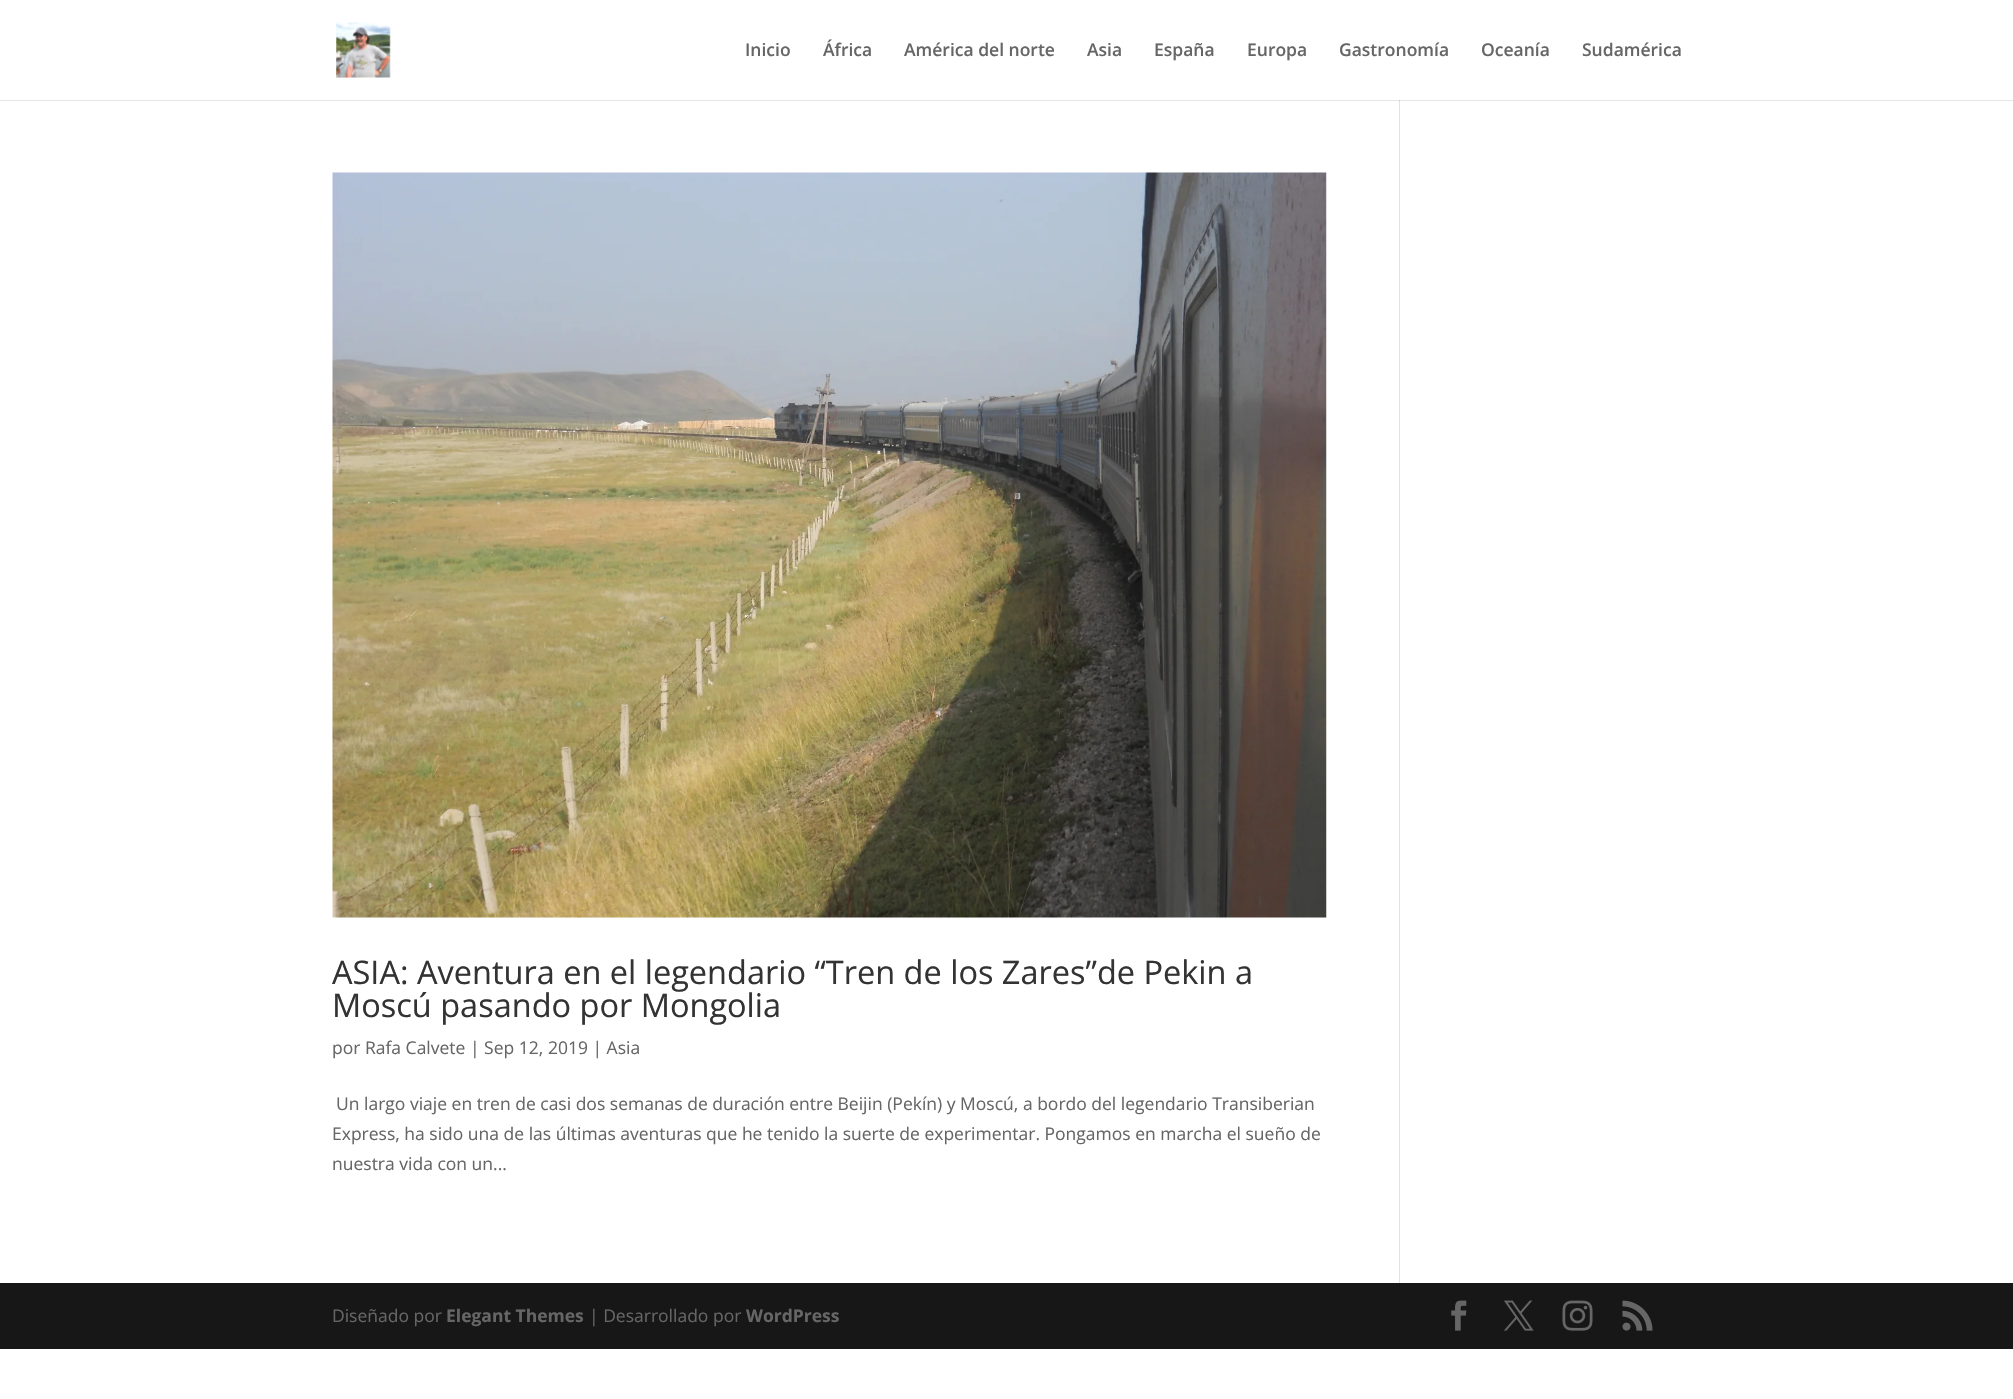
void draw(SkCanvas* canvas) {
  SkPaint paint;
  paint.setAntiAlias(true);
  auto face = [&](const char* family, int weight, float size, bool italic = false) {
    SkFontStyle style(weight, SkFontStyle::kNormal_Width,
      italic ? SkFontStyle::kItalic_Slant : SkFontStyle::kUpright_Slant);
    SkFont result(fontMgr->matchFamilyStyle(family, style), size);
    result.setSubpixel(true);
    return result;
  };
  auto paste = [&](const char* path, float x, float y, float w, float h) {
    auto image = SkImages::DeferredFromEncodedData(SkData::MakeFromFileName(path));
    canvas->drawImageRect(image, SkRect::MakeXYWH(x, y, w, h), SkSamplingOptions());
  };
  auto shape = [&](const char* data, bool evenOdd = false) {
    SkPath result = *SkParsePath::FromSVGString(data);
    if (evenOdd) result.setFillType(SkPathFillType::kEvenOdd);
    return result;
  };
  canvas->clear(0xffffffff);
  paint.setColor(0xffe2e2e2);
  canvas->drawRect(SkRect::MakeXYWH(1399, 100, 1, 1183), paint);
  paint.setColor(0x1a000000);
  canvas->drawPath(shape("M0 100V101H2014V1V100Z"), paint);
  paste("img/1.png", 336, 22, 55, 56);
  paste("img/2.png", 332, 172, 995, 746);
  paint.setColor(0xff171717);
  canvas->drawRect(SkRect::MakeXYWH(0, 1283, 2013, 66), paint);
  paste("img/3.png", 1451, 1300, 16, 31);
  paste("img/4.png", 1504, 1300, 30, 31);
  paste("img/5.png", 1562, 1300, 31, 31);
  paste("img/6.png", 1622, 1300, 31, 31);
  auto f0 = face("Open Sans", 600, 17.5f);
  paint.setColor(0xff666666);
  {
    const struct { const char* s; float x, y; } items[] = {
      {"Inicio", 745, 56},
      {"África", 823, 56},
      {"América del norte", 904, 56},
      {"Asia", 1087, 56},
      {"España", 1154, 56},
      {"Europa", 1247, 56},
      {"Gastronomía", 1339, 56},
      {"Oceanía", 1481, 56},
      {"Sudamérica", 1582, 56},
    };
    for (auto [s, x, y] : items) {
      canvas->drawString(s, x, y, f0, paint);
    }
  }
  auto f1 = face("Open Sans", 400, 32.5f);
  paint.setColor(0xff333333);
  canvas->drawString("ASIA: Aventura en el legendario “Tren de los Zares”de Pekin a", 332, 984, f1, paint);
  canvas->drawString("Moscú pasando por Mongolia", 332, 1017, f1, paint);
  auto f2 = face("Open Sans", 400, 17.5f);
  paint.setColor(0xff666666);
  {
    const struct { const char* s; float x, y; } items[] = {
      {"por Rafa Calvete | Sep 12, 2019 | Asia", 332, 1054},
      {"Un largo viaje en tren de casi dos semanas de duración entre Beijin (Pekín) y Moscú, a bordo del legendario Transiberian", 336, 1110},
      {"Express, ha sido una de las últimas aventuras que he tenido la suerte de experimentar. Pongamos en marcha el sueño de", 332, 1140},
      {"nuestra vida con un...", 332, 1170},
      {"Diseñado por", 332, 1322},
    };
    for (auto [s, x, y] : items) {
      canvas->drawString(s, x, y, f2, paint);
    }
  }
  auto f3 = face("Open Sans", 700, 17.5f);
  canvas->drawString("Elegant Themes", 446, 1322, f3, paint);
  canvas->drawString("| Desarrollado por", 589, 1322, f2, paint);
  canvas->drawString("WordPress", 746, 1322, f3, paint);
}
